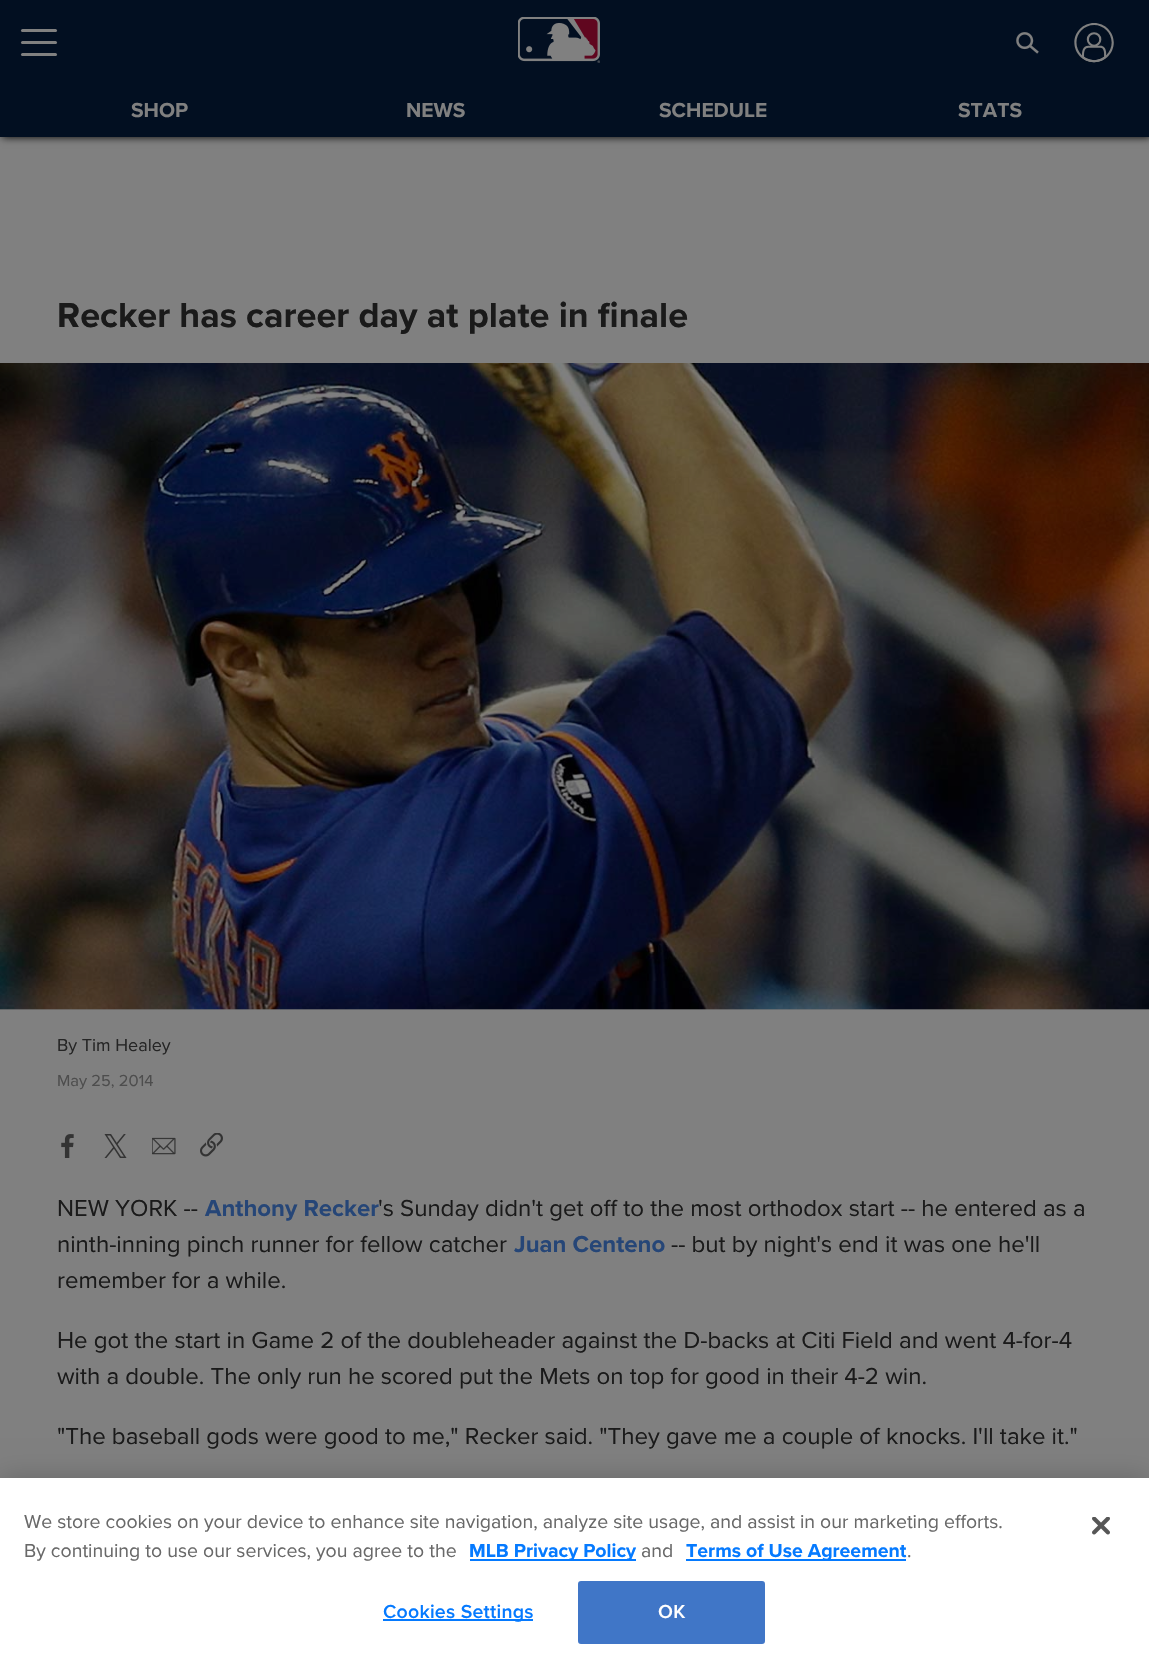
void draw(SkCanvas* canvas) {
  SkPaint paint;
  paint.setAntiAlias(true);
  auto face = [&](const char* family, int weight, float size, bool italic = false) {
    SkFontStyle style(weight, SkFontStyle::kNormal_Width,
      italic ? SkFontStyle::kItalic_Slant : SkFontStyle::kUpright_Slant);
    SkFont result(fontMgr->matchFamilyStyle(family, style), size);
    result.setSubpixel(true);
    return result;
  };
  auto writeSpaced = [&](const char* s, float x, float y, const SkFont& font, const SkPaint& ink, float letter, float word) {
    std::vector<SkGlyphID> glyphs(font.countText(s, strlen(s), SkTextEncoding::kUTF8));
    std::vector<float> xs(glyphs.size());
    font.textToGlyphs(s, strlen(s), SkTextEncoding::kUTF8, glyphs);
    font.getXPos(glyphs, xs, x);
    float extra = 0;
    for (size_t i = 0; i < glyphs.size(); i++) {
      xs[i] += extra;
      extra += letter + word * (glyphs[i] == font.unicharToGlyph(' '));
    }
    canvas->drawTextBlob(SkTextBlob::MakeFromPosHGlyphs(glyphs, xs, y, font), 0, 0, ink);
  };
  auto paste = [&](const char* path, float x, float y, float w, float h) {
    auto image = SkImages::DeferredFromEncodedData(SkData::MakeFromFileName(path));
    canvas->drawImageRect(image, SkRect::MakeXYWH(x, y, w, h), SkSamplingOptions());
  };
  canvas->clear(0xff808080);
  paint.setColor(0xff000000);
  paint.setMaskFilter(SkMaskFilter::MakeBlur(kNormal_SkBlurStyle, 4));
  canvas->drawRect(SkRect::MakeXYWH(2, 0, 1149, 137), paint);
  paint.setMaskFilter(nullptr);
  paint.setColor(0xff020f21);
  canvas->drawRect(SkRect::MakeXYWH(0, 0, 1149, 137), paint);
  paint.setColor(0xff808080);
  canvas->drawRoundRect(SkRect::MakeXYWH(21, 29, 36, 3), 1.5f, 1.5f, paint);
  canvas->drawRoundRect(SkRect::MakeXYWH(21, 41, 36, 3), 1.5f, 1.5f, paint);
  canvas->drawRoundRect(SkRect::MakeXYWH(21, 53, 36, 3), 1.5f, 1.5f, paint);
  paste("img/1.png", 518, 17, 82, 46);
  paste("img/2.png", 1016, 32, 23, 22);
  paste("img/3.png", 1074, 23, 40, 40);
  paint.setColor(0xff767676);
  canvas->drawRect(SkRect::MakeXYWH(0, 1009, 1149, 1), paint);
  paste("img/4.png", 0, 363, 1149, 647);
  paste("img/5.png", 61, 1134, 13, 24);
  paste("img/6.png", 104, 1134, 23, 24);
  paste("img/7.png", 152, 1137, 24, 18);
  paste("img/8.png", 200, 1133, 23, 24);
  paint.setColor(0x33000000);
  paint.setMaskFilter(SkMaskFilter::MakeBlur(kNormal_SkBlurStyle, 13.5f));
  canvas->drawRect(SkRect::MakeXYWH(0, 1478, 1149, 190), paint);
  paint.setMaskFilter(nullptr);
  {
    const struct { float x, y, w, h; SkColor color; } items[] = {
      {0, 1478, 1149, 190, 0xffffffff},
      {470, 1559, 166, 2, 0xff057aff},
      {686, 1559, 220, 2, 0xff057aff},
      {383, 1619, 150, 2, 0xff057aff},
    };
    for (auto [x, y, w, h, color] : items) {
      paint.setColor(color);
      canvas->drawRect(SkRect::MakeXYWH(x, y, w, h), paint);
    }
  }
  paint.setColor(0xff4076c7);
  canvas->drawRoundRect(SkRect::MakeXYWH(579, 1582, 185, 61), 2, 2, paint);
  paint.setStroke(true);
  paint.setStrokeWidth(2);
  canvas->drawRoundRect(SkRect::MakeXYWH(579, 1582, 185, 61), 2, 2, paint);
  paste("img/9.png", 1092, 1517, 18, 18);
  auto f0 = face("Proxima Nova", 700, 21);
  paint.setStroke(false);
  paint.setColor(0xff808080);
  {
    const struct { const char* s; float x, y; } items[] = {
      {"SHOP", 131, 117},
      {"NEWS", 406, 117},
      {"SCHEDULE", 659, 117},
      {"STATS", 958, 117},
    };
    for (auto [s, x, y] : items) {
      canvas->drawString(s, x, y, f0, paint);
    }
  }
  auto f1 = face("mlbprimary", 700, 36);
  paint.setColor(0xff1a1a1a);
  canvas->drawString("Recker has career day at plate in finale", 57, 327, f1, paint);
  auto f2 = face("mlbprimary", 400, 18);
  paint.setColor(0xff252525);
  canvas->drawString("By Tim Healey", 57, 1051, f2, paint);
  auto f3 = face("mlbprimary", 400, 16.5f);
  paint.setColor(0xff4d4d4d);
  canvas->drawString("May 25, 2014", 57, 1086, f3, paint);
  auto f4 = face("mlbprimary", 400, 24);
  paint.setColor(0xff1a1a1a);
  canvas->drawString("NEW YORK --", 57, 1216, f4, paint);
  auto f5 = face("mlbprimary", 700, 24);
  paint.setColor(0xff264677);
  canvas->drawString("Anthony Recker", 205, 1216, f5, paint);
  paint.setColor(0xff1a1a1a);
  canvas->drawString("'s Sunday didn't get off to the most orthodox start -- he entered as a", 378, 1216, f4, paint);
  canvas->drawString("ninth-inning pinch runner for fellow catcher", 57, 1252, f4, paint);
  paint.setColor(0xff264677);
  canvas->drawString("Juan Centeno", 514, 1252, f5, paint);
  paint.setColor(0xff1a1a1a);
  {
    const struct { const char* s; float x, y; } items[] = {
      {"-- but by night's end it was one he'll", 671, 1252},
      {"remember for a while.", 57, 1288},
      {"He got the start in Game 2 of the doubleheader against the D-backs at Citi Field and went 4-for-4", 57, 1348},
      {"with a double. The only run he scored put the Mets on top for good in their 4-2 win.", 57, 1384},
      {"\"The baseball gods were good to me,\" Recker said. \"They gave me a couple of knocks. I'll take it.\"", 57, 1444},
    };
    for (auto [s, x, y] : items) {
      canvas->drawString(s, x, y, f4, paint);
    }
  }
  auto f6 = face("mlbprimary", 400, 19.5f);
  paint.setColor(0xff696969);
  canvas->drawString("We store cookies on your device to enhance site navigation, analyze site usage, and assist in our marketing efforts.", 24, 1528, f6, paint);
  canvas->drawString("By continuing to use our services, you agree to the", 24, 1557, f6, paint);
  auto f7 = face("mlbprimary", 700, 19.5f);
  paint.setColor(0xff057aff);
  canvas->drawString("MLB Privacy Policy", 469, 1557, f7, paint);
  paint.setColor(0xff696969);
  canvas->drawString("and", 641, 1557, f6, paint);
  paint.setColor(0xff057aff);
  canvas->drawString("Terms of Use Agreement", 686, 1557, f7, paint);
  paint.setColor(0xff696969);
  canvas->drawString(".", 907, 1557, f6, paint);
  auto f8 = face("Proxima Nova", 600, 19.5f);
  paint.setColor(0xff057aff);
  writeSpaced("Cookies Settings", 383, 1618, f8, paint, 0.25f, 0);
  paint.setColor(0xffffffff);
  writeSpaced("OK", 658, 1618, f8, paint, 0.25f, 0);
}
